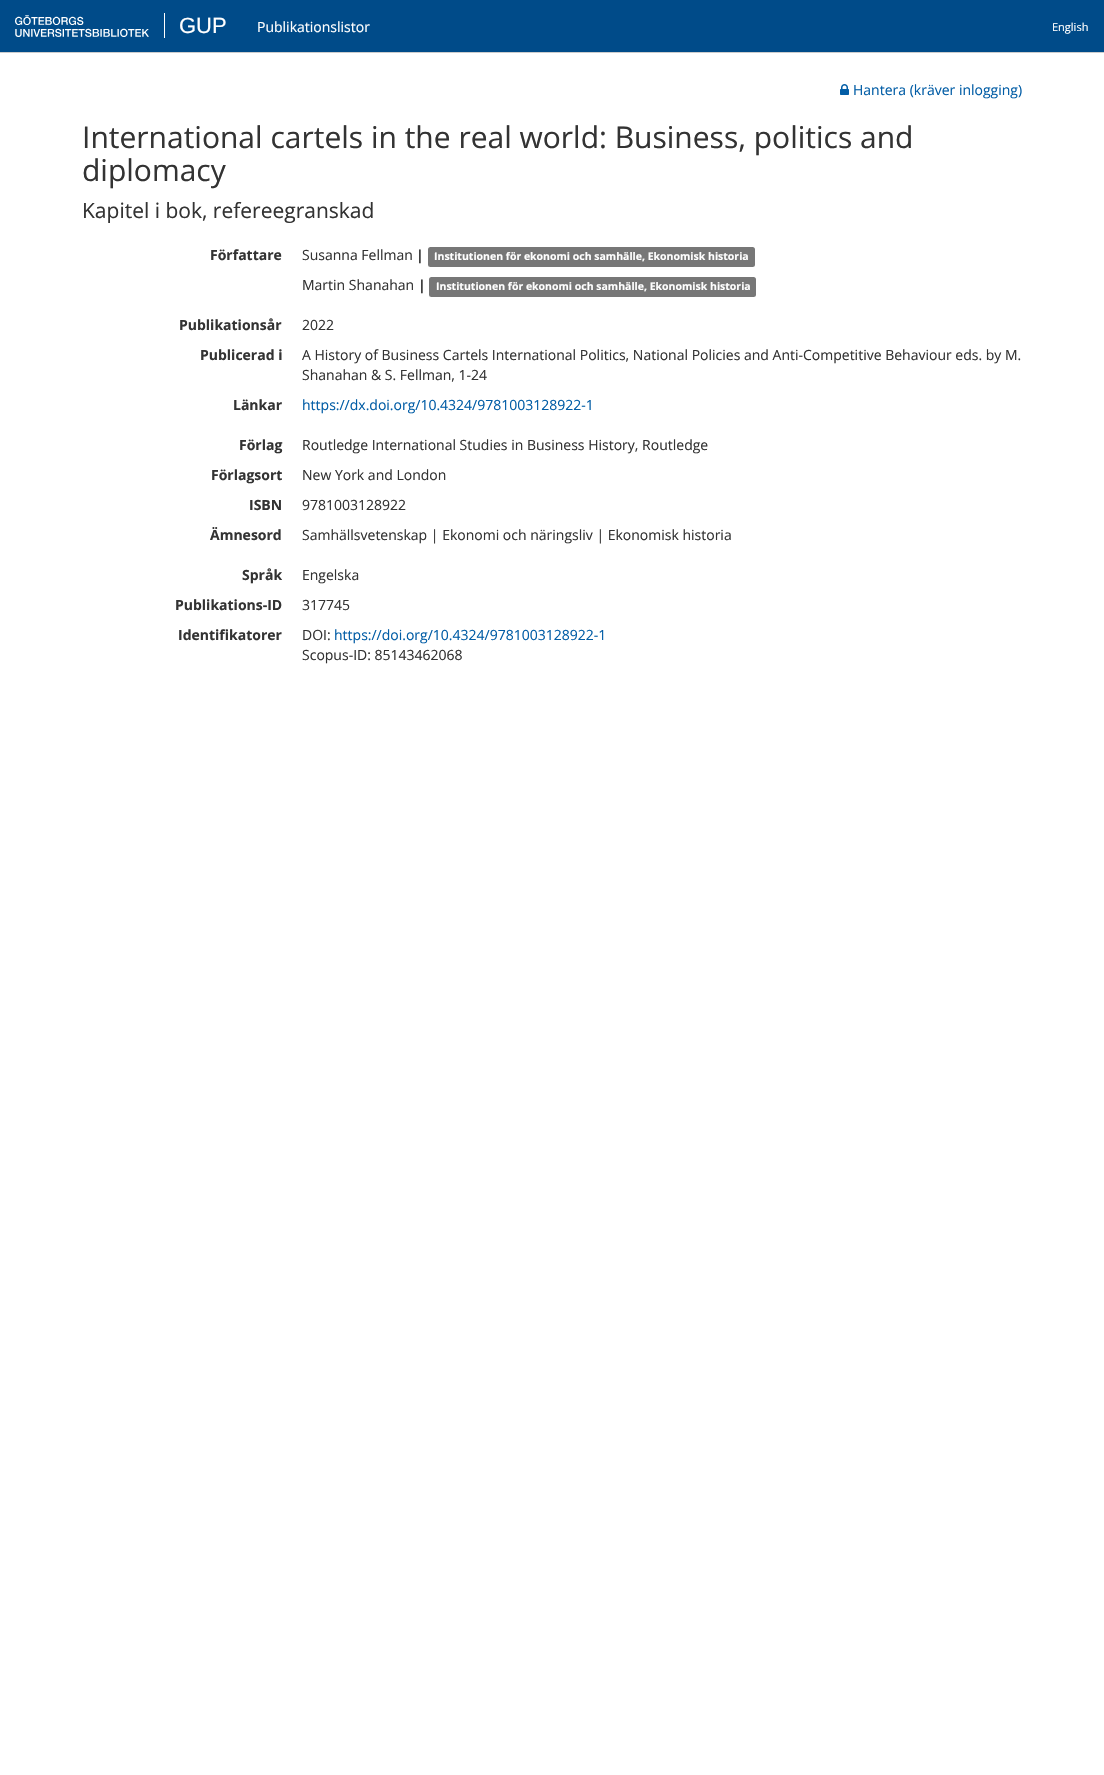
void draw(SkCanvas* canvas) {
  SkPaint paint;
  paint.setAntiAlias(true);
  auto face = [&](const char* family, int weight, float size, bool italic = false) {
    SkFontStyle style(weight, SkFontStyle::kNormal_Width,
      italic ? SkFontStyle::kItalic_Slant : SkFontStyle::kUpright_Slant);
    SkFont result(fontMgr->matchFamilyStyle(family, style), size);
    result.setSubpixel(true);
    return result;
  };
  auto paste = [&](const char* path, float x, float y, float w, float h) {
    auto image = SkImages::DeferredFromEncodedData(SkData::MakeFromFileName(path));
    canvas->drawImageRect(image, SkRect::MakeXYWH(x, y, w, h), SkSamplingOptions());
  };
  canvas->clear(0xffffffff);
  paint.setColor(0xff004b89);
  canvas->drawRect(SkRect::MakeXYWH(0, 0, 1104, 52), paint);
  paint.setColor(0xffcccccc);
  canvas->drawRect(SkRect::MakeXYWH(0, 52, 1104, 1), paint);
  paste("img/1.png", 15, 15, 134, 22);
  paint.setColor(0xffffffff);
  canvas->drawRect(SkRect::MakeXYWH(164, 13, 1, 25), paint);
  paste("img/2.png", 840, 84, 9, 11);
  paint.setColor(0xff777777);
  canvas->drawRoundRect(SkRect::MakeXYWH(428, 247, 327, 20), 2.5f, 2.5f, paint);
  canvas->drawRoundRect(SkRect::MakeXYWH(429, 277, 327, 20), 2.5f, 2.5f, paint);
  auto f0 = face("Liberation Sans", 400, 22);
  paint.setColor(0xffffffff);
  canvas->drawString("GUP", 179, 33, f0, paint);
  auto f1 = face("Open Sans", 400, 14);
  canvas->drawString("Publikationslistor", 257, 32, f1, paint);
  auto f2 = face("Open Sans", 400, 11);
  canvas->drawString("English", 1052, 31, f2, paint);
  paint.setColor(0xff025da6);
  canvas->drawString("Hantera (kräver inlogging)", 853, 95, f1, paint);
  auto f3 = face("Open Sans", 400, 30);
  paint.setColor(0xff333333);
  canvas->drawString("International cartels in the real world: Business, politics and", 82, 148, f3, paint);
  canvas->drawString("diplomacy", 82, 181, f3, paint);
  auto f4 = face("Open Sans", 400, 21);
  canvas->drawString("Kapitel i bok, refereegranskad", 82, 218, f4, paint);
  auto f5 = face("Open Sans", 700, 14);
  canvas->drawString("Författare", 210, 260, f5, paint);
  canvas->drawString("Susanna Fellman", 302, 260, f1, paint);
  canvas->drawString("|", 416, 260, f5, paint);
  auto f6 = face("Open Sans", 700, 10.5f);
  paint.setColor(0xffffffff);
  canvas->drawString("Institutionen för ekonomi och samhälle, Ekonomisk historia", 434, 260, f6, paint);
  paint.setColor(0xff333333);
  canvas->drawString("Martin Shanahan", 302, 290, f1, paint);
  canvas->drawString("|", 418, 290, f5, paint);
  paint.setColor(0xffffffff);
  canvas->drawString("Institutionen för ekonomi och samhälle, Ekonomisk historia", 436, 290, f6, paint);
  paint.setColor(0xff333333);
  canvas->drawString("Publikationsår", 179, 330, f5, paint);
  canvas->drawString("2022", 302, 330, f1, paint);
  canvas->drawString("Publicerad i", 200, 360, f5, paint);
  canvas->drawString("A History of Business Cartels International Politics, National Policies and Anti-Competitive Behaviour eds. by M.", 302, 360, f1, paint);
  canvas->drawString("Shanahan & S. Fellman, 1-24", 302, 380, f1, paint);
  canvas->drawString("Länkar", 233, 410, f5, paint);
  paint.setColor(0xff025da6);
  canvas->drawString("https://dx.doi.org/10.4324/9781003128922-1", 302, 410, f1, paint);
  paint.setColor(0xff333333);
  canvas->drawString("Förlag", 239, 450, f5, paint);
  canvas->drawString("Routledge International Studies in Business History, Routledge", 302, 450, f1, paint);
  canvas->drawString("Förlagsort", 211, 480, f5, paint);
  canvas->drawString("New York and London", 302, 480, f1, paint);
  canvas->drawString("ISBN", 249, 510, f5, paint);
  canvas->drawString("9781003128922", 302, 510, f1, paint);
  canvas->drawString("Ämnesord", 210, 540, f5, paint);
  canvas->drawString("Samhällsvetenskap | Ekonomi och näringsliv | Ekonomisk historia", 302, 540, f1, paint);
  canvas->drawString("Språk", 242, 580, f5, paint);
  canvas->drawString("Engelska", 302, 580, f1, paint);
  canvas->drawString("Publikations-ID", 175, 610, f5, paint);
  canvas->drawString("317745", 302, 610, f1, paint);
  canvas->drawString("Identifikatorer", 178, 640, f5, paint);
  canvas->drawString("DOI:", 302, 640, f1, paint);
  paint.setColor(0xff025da6);
  canvas->drawString("https://doi.org/10.4324/9781003128922-1", 334, 640, f1, paint);
  paint.setColor(0xff333333);
  canvas->drawString("Scopus-ID: 85143462068", 302, 660, f1, paint);
}
